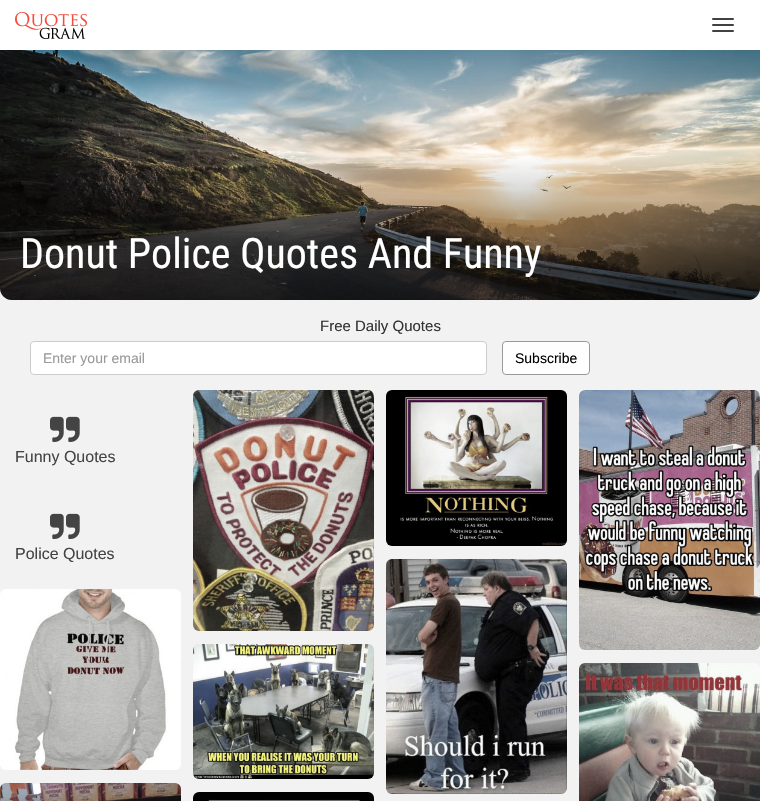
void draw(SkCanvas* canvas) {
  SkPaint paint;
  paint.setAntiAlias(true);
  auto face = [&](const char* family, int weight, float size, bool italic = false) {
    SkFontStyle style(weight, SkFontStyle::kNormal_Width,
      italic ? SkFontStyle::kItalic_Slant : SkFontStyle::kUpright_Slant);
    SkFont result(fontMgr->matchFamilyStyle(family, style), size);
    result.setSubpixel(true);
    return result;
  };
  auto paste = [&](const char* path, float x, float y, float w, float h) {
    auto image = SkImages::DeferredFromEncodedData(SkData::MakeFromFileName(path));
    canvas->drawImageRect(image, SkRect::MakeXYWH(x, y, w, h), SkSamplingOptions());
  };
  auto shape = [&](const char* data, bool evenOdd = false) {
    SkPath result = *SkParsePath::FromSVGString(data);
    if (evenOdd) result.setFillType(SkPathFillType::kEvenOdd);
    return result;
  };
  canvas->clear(0xfff2f2f2);
  paint.setColor(0xffffffff);
  canvas->drawRect(SkRect::MakeXYWH(0, 0, 760, 50), paint);
  paste("img/1.png", 15, 12, 72, 27);
  paint.setColor(0xff414141);
  canvas->drawRoundRect(SkRect::MakeXYWH(712, 18, 22, 2), 1, 1, paint);
  canvas->drawRoundRect(SkRect::MakeXYWH(712, 24, 22, 2), 1, 1, paint);
  canvas->drawRoundRect(SkRect::MakeXYWH(712, 30, 22, 2), 1, 1, paint);
  paste("img/2.png", 0, 50, 760, 250);
  {
    const SkColor colors[] = {0x00000000, 0x99000000};
    const float stops[] = {0, 1};
    const SkPoint ends[] = {{380, 155}, {380, 300}};
    paint.setShader(SkGradientShader::MakeLinear(ends, colors, stops, 2, SkTileMode::kClamp));
    paint.setAlpha(255);
  }
  canvas->drawPath(shape("M0 155H760V288C760 294.5 754.5 300 748 300H12C5.5 300 0 294.5 0 288Z"), paint);
  paint.setShader(nullptr);
  paint.setColor(0xffffffff);
  canvas->drawRoundRect(SkRect::MakeXYWH(30.5f, 341.5f, 456, 33), 3.5f, 3.5f, paint);
  paint.setStroke(true);
  paint.setStrokeWidth(1);
  paint.setColor(0xffcccccc);
  canvas->drawRoundRect(SkRect::MakeXYWH(30.5f, 341.5f, 456, 33), 3.5f, 3.5f, paint);
  paint.setStroke(false);
  paint.setColor(0xfffefefe);
  canvas->drawRoundRect(SkRect::MakeXYWH(502.5f, 341.5f, 87, 33), 3.5f, 3.5f, paint);
  paint.setStroke(true);
  paint.setColor(0xff999999);
  canvas->drawRoundRect(SkRect::MakeXYWH(502.5f, 341.5f, 87, 33), 3.5f, 3.5f, paint);
  paste("img/3.png", 50, 416, 30, 26);
  paste("img/4.png", 193, 390, 181, 241);
  paste("img/5.png", 386, 390, 181, 156);
  paste("img/6.png", 579, 390, 181, 260);
  paste("img/3.png", 50, 513, 30, 26);
  paste("img/7.png", 0, 589, 181, 181);
  paste("img/8.png", 193, 644, 181, 135);
  paste("img/9.png", 386, 559, 181, 235);
  paste("img/10.png", 579, 663, 181, 138);
  paste("img/11.png", 0, 783, 181, 18);
  paste("img/12.png", 193, 792, 181, 9);
  auto f0 = face("Roboto Condensed", 400, 42);
  paint.setStroke(false);
  paint.setColor(0xffffffff);
  canvas->drawString("Donut Police Quotes And Funny", 20, 268, f0, paint);
  auto f1 = face("Liberation Sans", 400, 15);
  paint.setColor(0xff333333);
  canvas->drawString("Free Daily Quotes", 320, 331, f1, paint);
  auto f2 = face("Liberation Sans", 400, 14);
  paint.setColor(0xff999999);
  canvas->drawString("Enter your email", 43, 363, f2, paint);
  paint.setColor(0xff000000);
  canvas->drawString("Subscribe", 515, 363, f2, paint);
  auto f3 = face("Liberation Sans", 400, 16);
  paint.setColor(0xff444444);
  canvas->drawString("Funny Quotes", 15, 462, f3, paint);
  canvas->drawString("Police Quotes", 15, 559, f3, paint);
}
